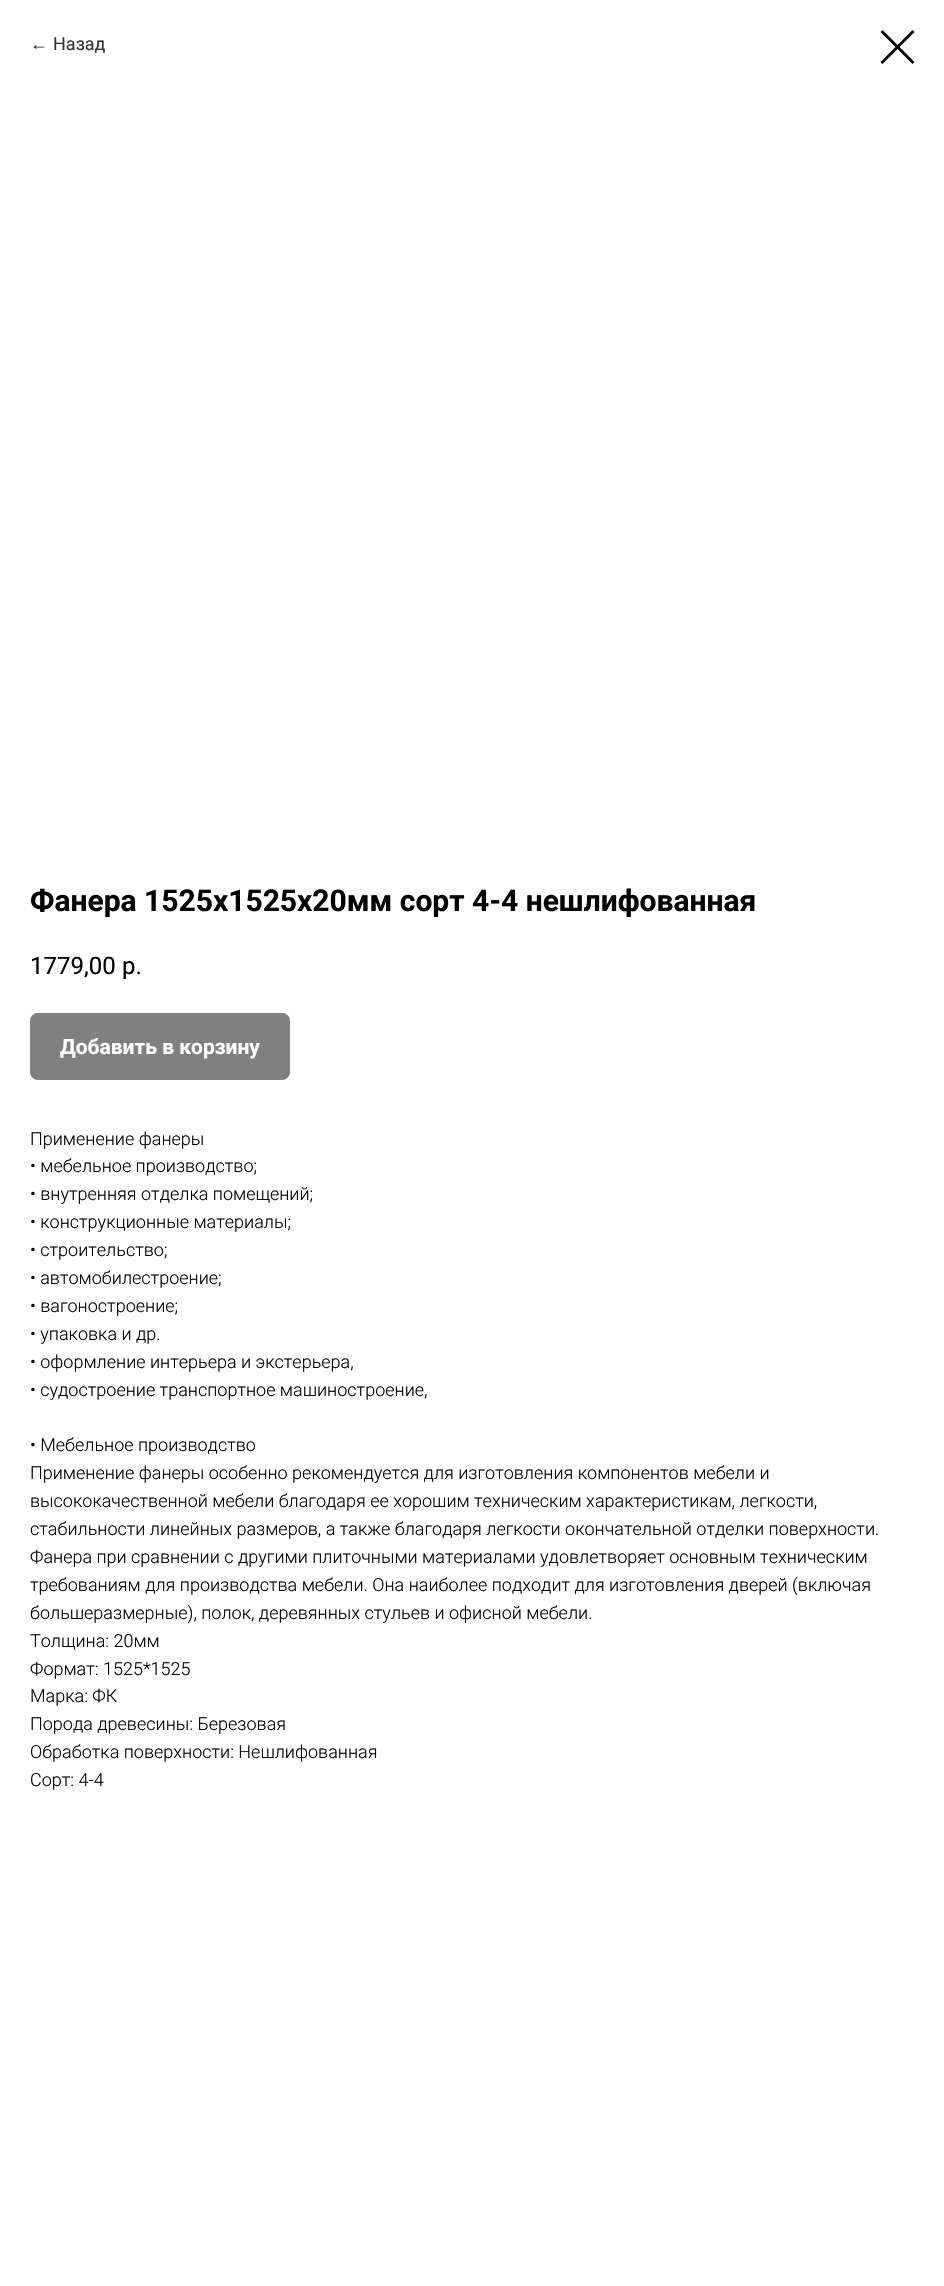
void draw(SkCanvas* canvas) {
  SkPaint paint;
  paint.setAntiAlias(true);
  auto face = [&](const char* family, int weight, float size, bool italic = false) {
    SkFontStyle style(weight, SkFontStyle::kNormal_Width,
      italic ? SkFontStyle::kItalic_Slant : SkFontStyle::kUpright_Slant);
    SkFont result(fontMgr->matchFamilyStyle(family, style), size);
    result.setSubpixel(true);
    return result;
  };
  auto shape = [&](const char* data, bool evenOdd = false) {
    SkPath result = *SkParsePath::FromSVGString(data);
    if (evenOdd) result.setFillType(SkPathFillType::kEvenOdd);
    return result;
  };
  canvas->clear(0xffffffff);
  paint.setColor(0xff000000);
  canvas->drawPath(shape("M880.5 32L882.5 30L914.5 62L912.5 64Z", true), paint);
  canvas->drawPath(shape("M912.5 30L914.5 32L882.5 64L880.5 62Z", true), paint);
  paint.setColor(0xff808080);
  canvas->drawRoundRect(SkRect::MakeXYWH(30, 1013, 260, 67), 8, 8, paint);
  auto f0 = face("Liberation Sans", 400, 18);
  paint.setColor(0xff333333);
  canvas->drawString("←", 30, 50, f0, paint);
  auto f1 = face("Roboto", 400, 18);
  canvas->drawString("Назад", 53, 50, f1, paint);
  auto f2 = face("Roboto", 700, 30);
  paint.setColor(0xff000000);
  canvas->drawString("Фанера 1525х1525х20мм сорт 4-4 нешлифованная", 30, 911, f2, paint);
  auto f3 = face("Roboto", 400, 24);
  canvas->drawString("1779,00", 30, 974, f3, paint);
  canvas->drawString("р.", 122, 974, f3, paint);
  auto f4 = face("Roboto", 700, 21);
  paint.setColor(0xffffffff);
  canvas->drawString("Добавить в корзину", 60, 1054, f4, paint);
  auto f5 = face("Roboto", 300, 18);
  paint.setColor(0xff000000);
  {
    const struct { const char* s; float x, y; } items[] = {
      {"Применение фанеры", 30, 1145},
      {"• мебельное производство;", 30, 1172},
      {"• внутренняя отделка помещений;", 30, 1200},
      {"• конструкционные материалы;", 30, 1228},
      {"• строительство;", 30, 1256},
      {"• автомобилестроение;", 30, 1284},
      {"• вагоностроение;", 30, 1312},
      {"• упаковка и др.", 30, 1340},
      {"• оформление интерьера и экстерьера,", 30, 1368},
      {"• судостроение транспортное машиностроение,", 30, 1396},
      {"• Мебельное производство", 30, 1451},
      {"Применение фанеры особенно рекомендуется для изготовления компонентов мебели и", 30, 1479},
      {"высококачественной мебели благодаря ее хорошим техническим характеристикам, легкости,", 30, 1507},
      {"стабильности линейных размеров, а также благодаря легкости окончательной отделки поверхности.", 30, 1535},
      {"Фанера при сравнении с другими плиточными материалами удовлетворяет основным техническим", 30, 1563},
      {"требованиям для производства мебели. Она наиболее подходит для изготовления дверей (включая", 30, 1591},
      {"большеразмерные), полок, деревянных стульев и офисной мебели.", 30, 1619},
      {"Толщина: 20мм", 30, 1647},
      {"Формат: 1525*1525", 30, 1675},
      {"Марка: ФК", 30, 1702},
      {"Порода древесины: Березовая", 30, 1730},
      {"Обработка поверхности: Нешлифованная", 30, 1758},
      {"Сорт: 4-4", 30, 1786},
    };
    for (auto [s, x, y] : items) {
      canvas->drawString(s, x, y, f5, paint);
    }
  }
}
